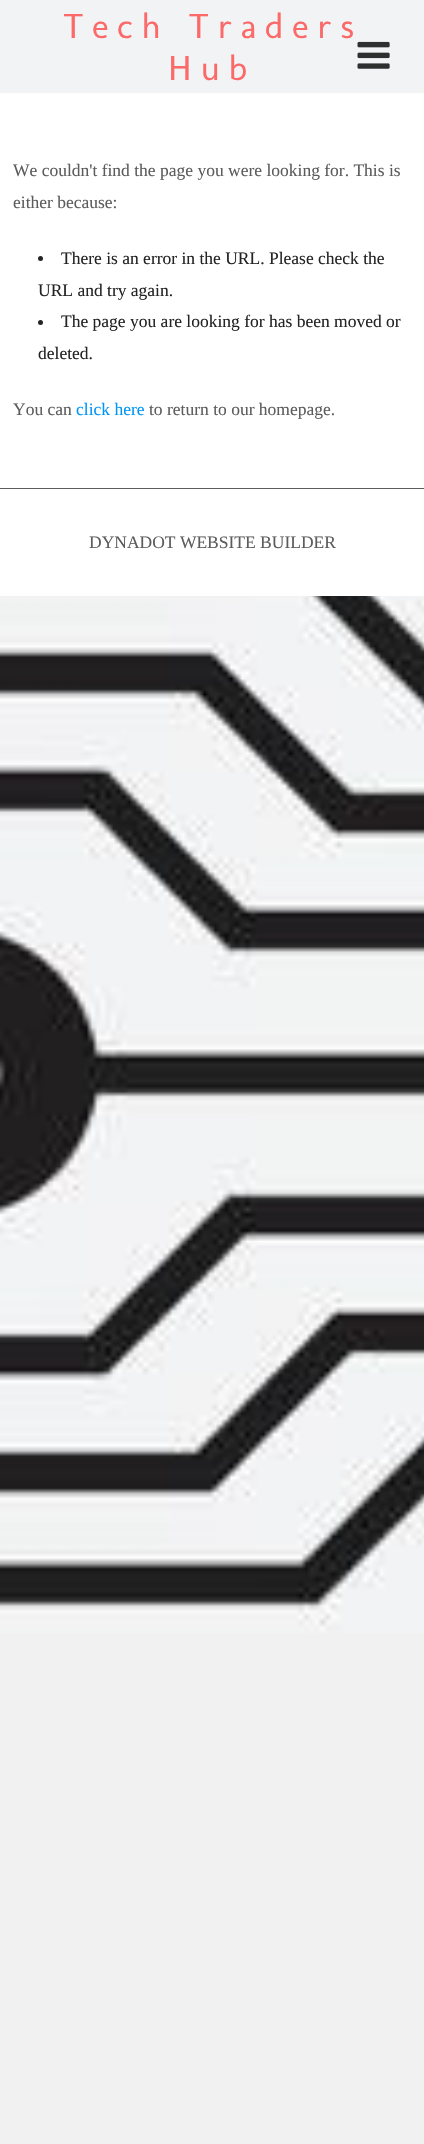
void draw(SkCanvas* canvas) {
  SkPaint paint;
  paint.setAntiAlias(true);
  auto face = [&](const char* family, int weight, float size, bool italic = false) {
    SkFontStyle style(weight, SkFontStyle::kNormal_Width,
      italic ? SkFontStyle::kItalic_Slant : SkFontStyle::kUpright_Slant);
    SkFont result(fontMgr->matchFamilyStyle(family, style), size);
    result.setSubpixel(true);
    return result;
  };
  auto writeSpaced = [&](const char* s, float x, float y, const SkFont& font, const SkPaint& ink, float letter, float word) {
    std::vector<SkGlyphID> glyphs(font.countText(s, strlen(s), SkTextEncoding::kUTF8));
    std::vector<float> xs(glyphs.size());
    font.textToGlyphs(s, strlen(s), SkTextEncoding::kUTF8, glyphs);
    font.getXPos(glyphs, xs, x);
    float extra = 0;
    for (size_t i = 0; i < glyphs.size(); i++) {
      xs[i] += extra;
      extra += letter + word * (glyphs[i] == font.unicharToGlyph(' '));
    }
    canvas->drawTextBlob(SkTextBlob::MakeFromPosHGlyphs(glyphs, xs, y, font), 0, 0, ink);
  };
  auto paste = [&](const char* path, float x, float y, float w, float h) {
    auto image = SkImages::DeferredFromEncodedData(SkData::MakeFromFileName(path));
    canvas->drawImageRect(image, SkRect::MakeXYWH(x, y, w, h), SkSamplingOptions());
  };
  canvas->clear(0xfff1f1f1);
  paste("img/1.png", 0, 596, 424, 1037);
  paint.setColor(0xfff2f3f5);
  canvas->drawRect(SkRect::MakeXYWH(0, 0, 424, 93), paint);
  paste("img/2.png", 357, 41, 33, 28);
  paint.setColor(0xffffffff);
  canvas->drawRect(SkRect::MakeXYWH(0, 93, 424, 395), paint);
  paint.setColor(0xff242424);
  canvas->drawCircle(40.5f, 258.5f, 2.5f, paint);
  canvas->drawCircle(40.5f, 322.5f, 2.5f, paint);
  paint.setColor(0xffffffff);
  canvas->drawRect(SkRect::MakeXYWH(0, 489, 424, 107), paint);
  paint.setColor(0xff5c5c5c);
  canvas->drawRect(SkRect::MakeXYWH(0, 488, 424, 1), paint);
  auto f0 = face("Molengo", 400, 35.5f);
  paint.setColor(0xfffc6969);
  writeSpaced("Tech Traders", 63, 38, f0, paint, 8.75f, 0);
  writeSpaced("Hub", 168, 80, f0, paint, 8.75f, 0);
  auto f1 = face("Liberation Serif", 400, 17.5f);
  paint.setColor(0xff5c5c5c);
  canvas->drawString("We couldn't find the page you were looking for. This is", 13, 176, f1, paint);
  canvas->drawString("either because:", 13, 208, f1, paint);
  paint.setColor(0xff242424);
  {
    const struct { const char* s; float x, y; } items[] = {
      {"There is an error in the URL. Please check the", 61, 264},
      {"URL and try again.", 38, 296},
      {"The page you are looking for has been moved or", 61, 327},
      {"deleted.", 38, 359},
    };
    for (auto [s, x, y] : items) {
      canvas->drawString(s, x, y, f1, paint);
    }
  }
  paint.setColor(0xff5c5c5c);
  canvas->drawString("You can", 13, 415, f1, paint);
  paint.setColor(0xff0096f7);
  canvas->drawString("click here", 76, 415, f1, paint);
  paint.setColor(0xff5c5c5c);
  canvas->drawString("to return to our homepage.", 149, 415, f1, paint);
  canvas->drawString("DYNADOT WEBSITE BUILDER", 89, 548, f1, paint);
}
